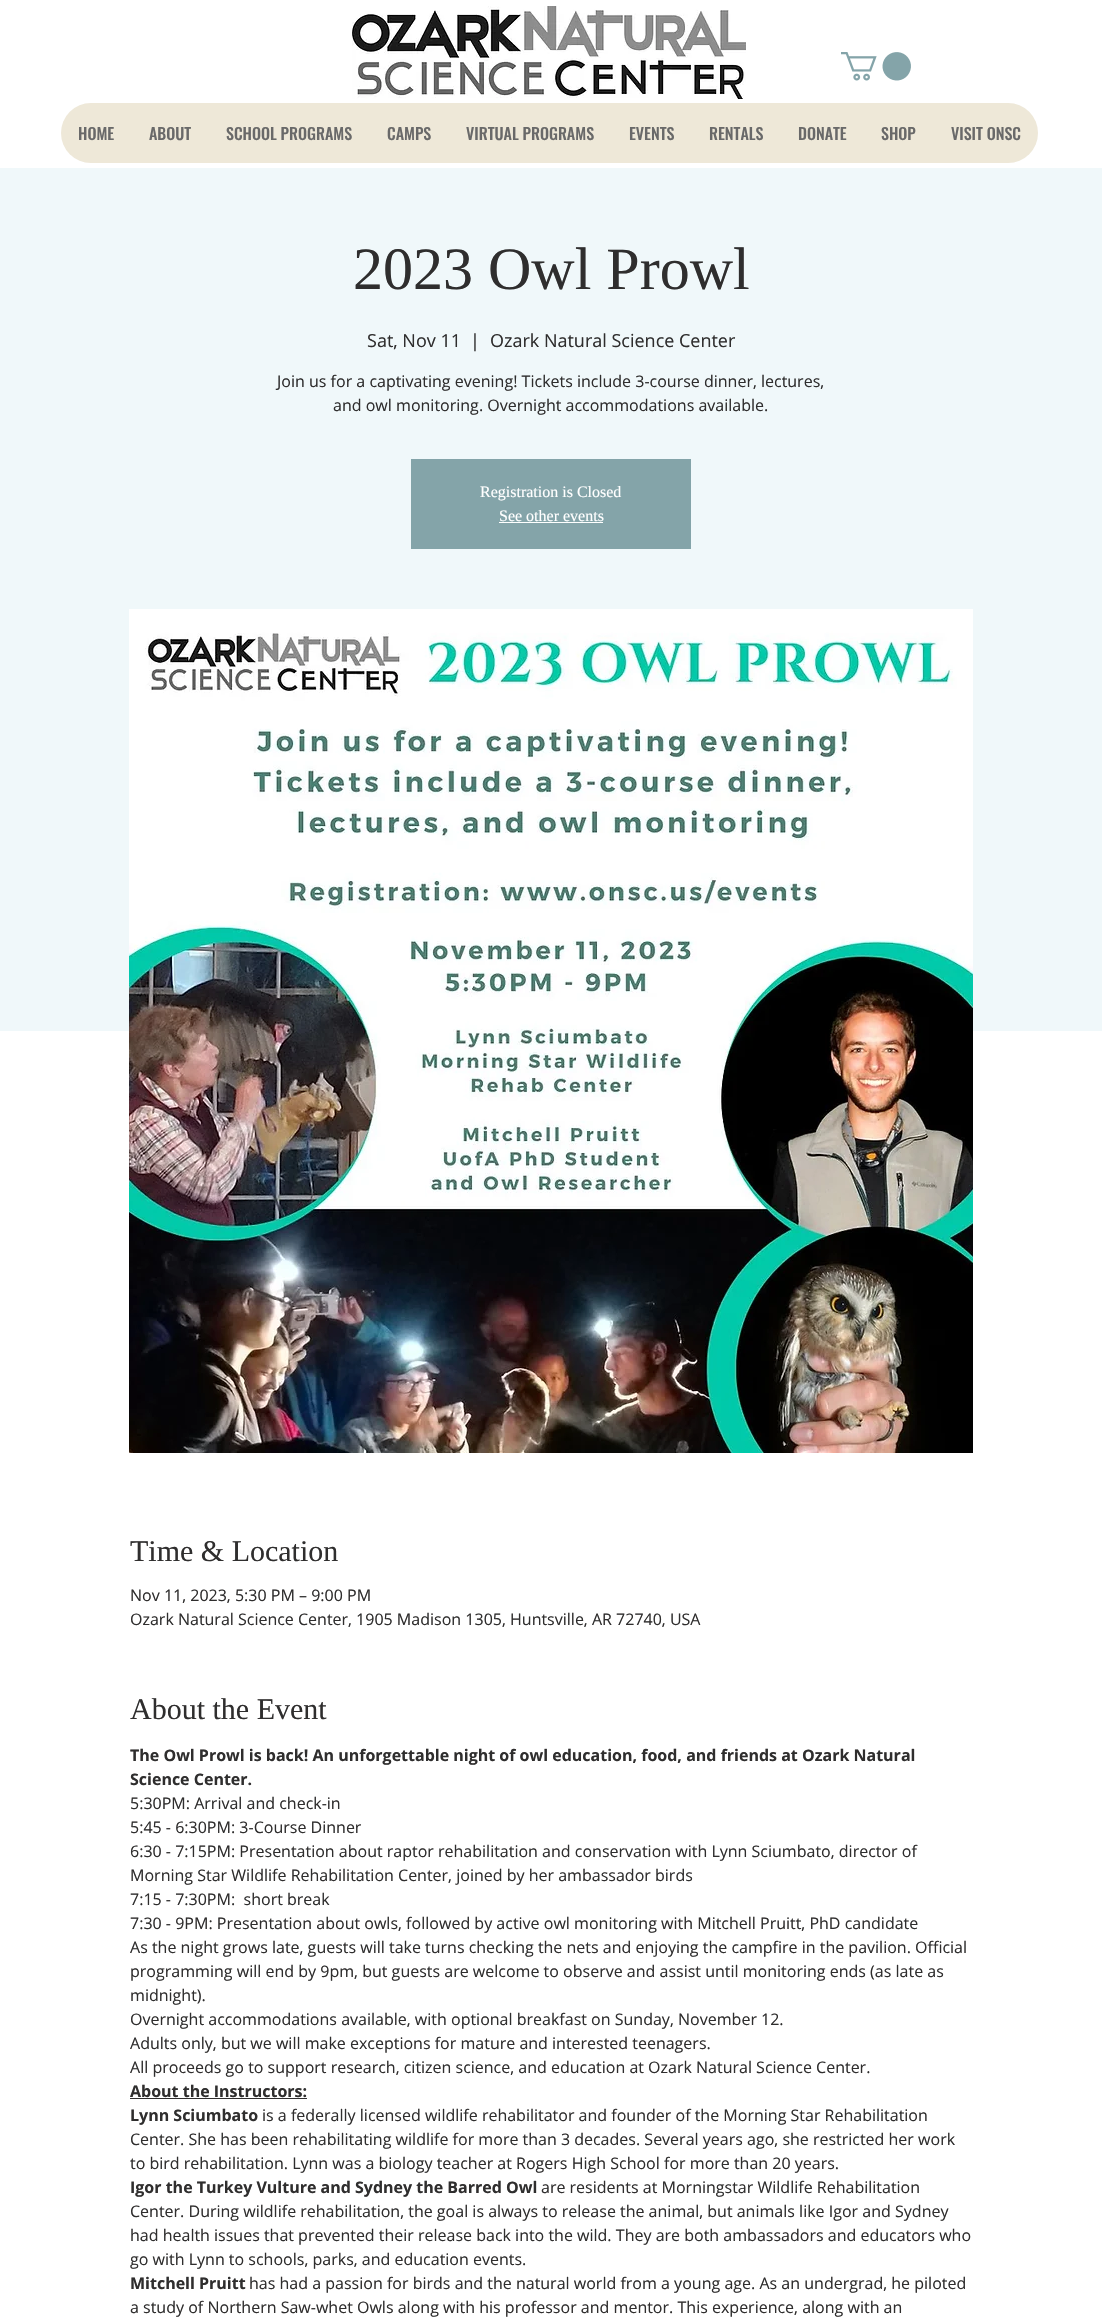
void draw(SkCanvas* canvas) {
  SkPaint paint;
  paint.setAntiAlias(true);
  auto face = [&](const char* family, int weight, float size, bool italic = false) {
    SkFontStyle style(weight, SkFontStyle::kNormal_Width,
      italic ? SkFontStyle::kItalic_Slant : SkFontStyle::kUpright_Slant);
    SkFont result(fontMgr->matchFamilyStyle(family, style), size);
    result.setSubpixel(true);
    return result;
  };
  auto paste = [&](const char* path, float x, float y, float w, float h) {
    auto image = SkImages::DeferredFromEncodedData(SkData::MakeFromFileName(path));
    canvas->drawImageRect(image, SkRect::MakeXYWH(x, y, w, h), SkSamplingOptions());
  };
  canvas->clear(0xffffffff);
  paste("img/1.png", 352, 6, 394, 93);
  paste("img/2.png", 841, 52, 70, 29);
  paint.setColor(0xffeee8d8);
  canvas->drawRoundRect(SkRect::MakeXYWH(61, 103, 977, 60), 30, 30, paint);
  {
    const struct { float x, y, w, h; SkColor color; } items[] = {
      {0, 168, 1102, 863, 0xfff0f8fa},
      {411, 459, 280, 90, 0xff84a4a9},
      {499, 522, 104, 1, 0xffffffff},
    };
    for (auto [x, y, w, h, color] : items) {
      paint.setColor(color);
      canvas->drawRect(SkRect::MakeXYWH(x, y, w, h), paint);
    }
  }
  paste("img/3.png", 129, 609, 844, 844);
  paint.setColor(0xff2f2e2e);
  canvas->drawRect(SkRect::MakeXYWH(130, 2098, 177, 1), paint);
  auto f0 = face("Oswald", 500, 16);
  paint.setColor(0xff696969);
  {
    const struct { const char* s; float x, y; } items[] = {
      {"HOME", 78, 140},
      {"ABOUT", 149, 140},
      {"SCHOOL PROGRAMS", 226, 140},
      {"CAMPS", 387, 140},
      {"VIRTUAL PROGRAMS", 466, 140},
      {"EVENTS", 629, 140},
      {"RENTALS", 709, 140},
      {"DONATE", 798, 140},
      {"SHOP", 881, 140},
      {"VISIT ONSC", 951, 140},
    };
    for (auto [s, x, y] : items) {
      canvas->drawString(s, x, y, f0, paint);
    }
  }
  auto f1 = face("Liberation Serif", 400, 60);
  paint.setColor(0xff2f2e2e);
  canvas->drawString("2023 Owl Prowl", 353, 289, f1, paint);
  auto f2 = face("Open Sans", 400, 18);
  {
    const struct { const char* s; float x, y; } items[] = {
      {"Sat, Nov 11", 367, 347},
      {"|", 470, 347},
      {"Ozark Natural Science Center", 490, 347},
    };
    for (auto [s, x, y] : items) {
      canvas->drawString(s, x, y, f2, paint);
    }
  }
  auto f3 = face("Open Sans", 400, 16);
  canvas->drawString("Join us for a captivating evening! Tickets include 3-course dinner, lectures,", 277, 387, f3, paint);
  canvas->drawString("and owl monitoring. Overnight accommodations available.", 333, 411, f3, paint);
  auto f4 = face("Liberation Serif", 400, 16);
  paint.setColor(0xffffffff);
  canvas->drawString("Registration is Closed", 480, 497, f4, paint);
  canvas->drawString("See other events", 499, 521, f4, paint);
  auto f5 = face("Liberation Serif", 400, 30);
  paint.setColor(0xff2f2e2e);
  canvas->drawString("Time & Location", 130, 1561, f5, paint);
  canvas->drawString("Nov 11, 2023, 5:30 PM – 9:00 PM", 130, 1601, f3, paint);
  canvas->drawString("Ozark Natural Science Center, 1905 Madison 1305, Huntsville, AR 72740, USA", 130, 1625, f3, paint);
  canvas->drawString("About the Event", 130, 1719, f5, paint);
  auto f6 = face("Open Sans", 700, 16);
  canvas->drawString("The Owl Prowl is back! An unforgettable night of owl education, food, and friends at Ozark Natural", 130, 1761, f6, paint);
  canvas->drawString("Science Center.", 130, 1785, f6, paint);
  {
    const struct { const char* s; float x, y; } items[] = {
      {"5:30PM: Arrival and check-in", 130, 1809},
      {"5:45 - 6:30PM: 3-Course Dinner", 130, 1833},
      {"6:30 - 7:15PM: Presentation about raptor rehabilitation and conservation with Lynn Sciumbato, director of", 130, 1857},
      {"Morning Star Wildlife Rehabilitation Center, joined by her ambassador birds", 130, 1881},
      {"7:15 - 7:30PM:  short break", 130, 1905},
      {"7:30 - 9PM: Presentation about owls, followed by active owl monitoring with Mitchell Pruitt, PhD candidate", 130, 1929},
      {"As the night grows late, guests will take turns checking the nets and enjoying the campfire in the pavilion. Official", 130, 1953},
      {"programming will end by 9pm, but guests are welcome to observe and assist until monitoring ends (as late as", 130, 1977},
      {"midnight).", 130, 2001},
      {"Overnight accommodations available, with optional breakfast on Sunday, November 12.", 130, 2025},
      {"Adults only, but we will make exceptions for mature and interested teenagers.", 130, 2049},
      {"All proceeds go to support research, citizen science, and education at Ozark Natural Science Center.", 130, 2073},
    };
    for (auto [s, x, y] : items) {
      canvas->drawString(s, x, y, f3, paint);
    }
  }
  canvas->drawString("About the Instructors:", 130, 2097, f6, paint);
  canvas->drawString("Lynn Sciumbato", 130, 2121, f6, paint);
  {
    const struct { const char* s; float x, y; } items[] = {
      {"is a federally licensed wildlife rehabilitator and founder of the Morning Star Rehabilitation", 262, 2121},
      {"Center. She has been rehabilitating wildlife for more than 3 decades. Several years ago, she restricted her work", 130, 2145},
      {"to bird rehabilitation. Lynn was a biology teacher at Rogers High School for more than 20 years.", 130, 2169},
    };
    for (auto [s, x, y] : items) {
      canvas->drawString(s, x, y, f3, paint);
    }
  }
  canvas->drawString("Igor the Turkey Vulture and Sydney the Barred Owl", 130, 2193, f6, paint);
  {
    const struct { const char* s; float x, y; } items[] = {
      {"are residents at Morningstar Wildlife Rehabilitation", 541, 2193},
      {"Center. During wildlife rehabilitation, the goal is always to release the animal, but animals like Igor and Sydney", 130, 2217},
      {"had health issues that prevented their release back into the wild. They are both ambassadors and educators who", 130, 2241},
      {"go with Lynn to schools, parks, and education events.", 130, 2265},
    };
    for (auto [s, x, y] : items) {
      canvas->drawString(s, x, y, f3, paint);
    }
  }
  canvas->drawString("Mitchell Pruitt", 130, 2289, f6, paint);
  canvas->drawString("has had a passion for birds and the natural world from a young age. As an undergrad, he piloted", 249, 2289, f3, paint);
  canvas->drawString("a study of Northern Saw-whet Owls along with his professor and mentor. This experience, along with an", 130, 2313, f3, paint);
}
